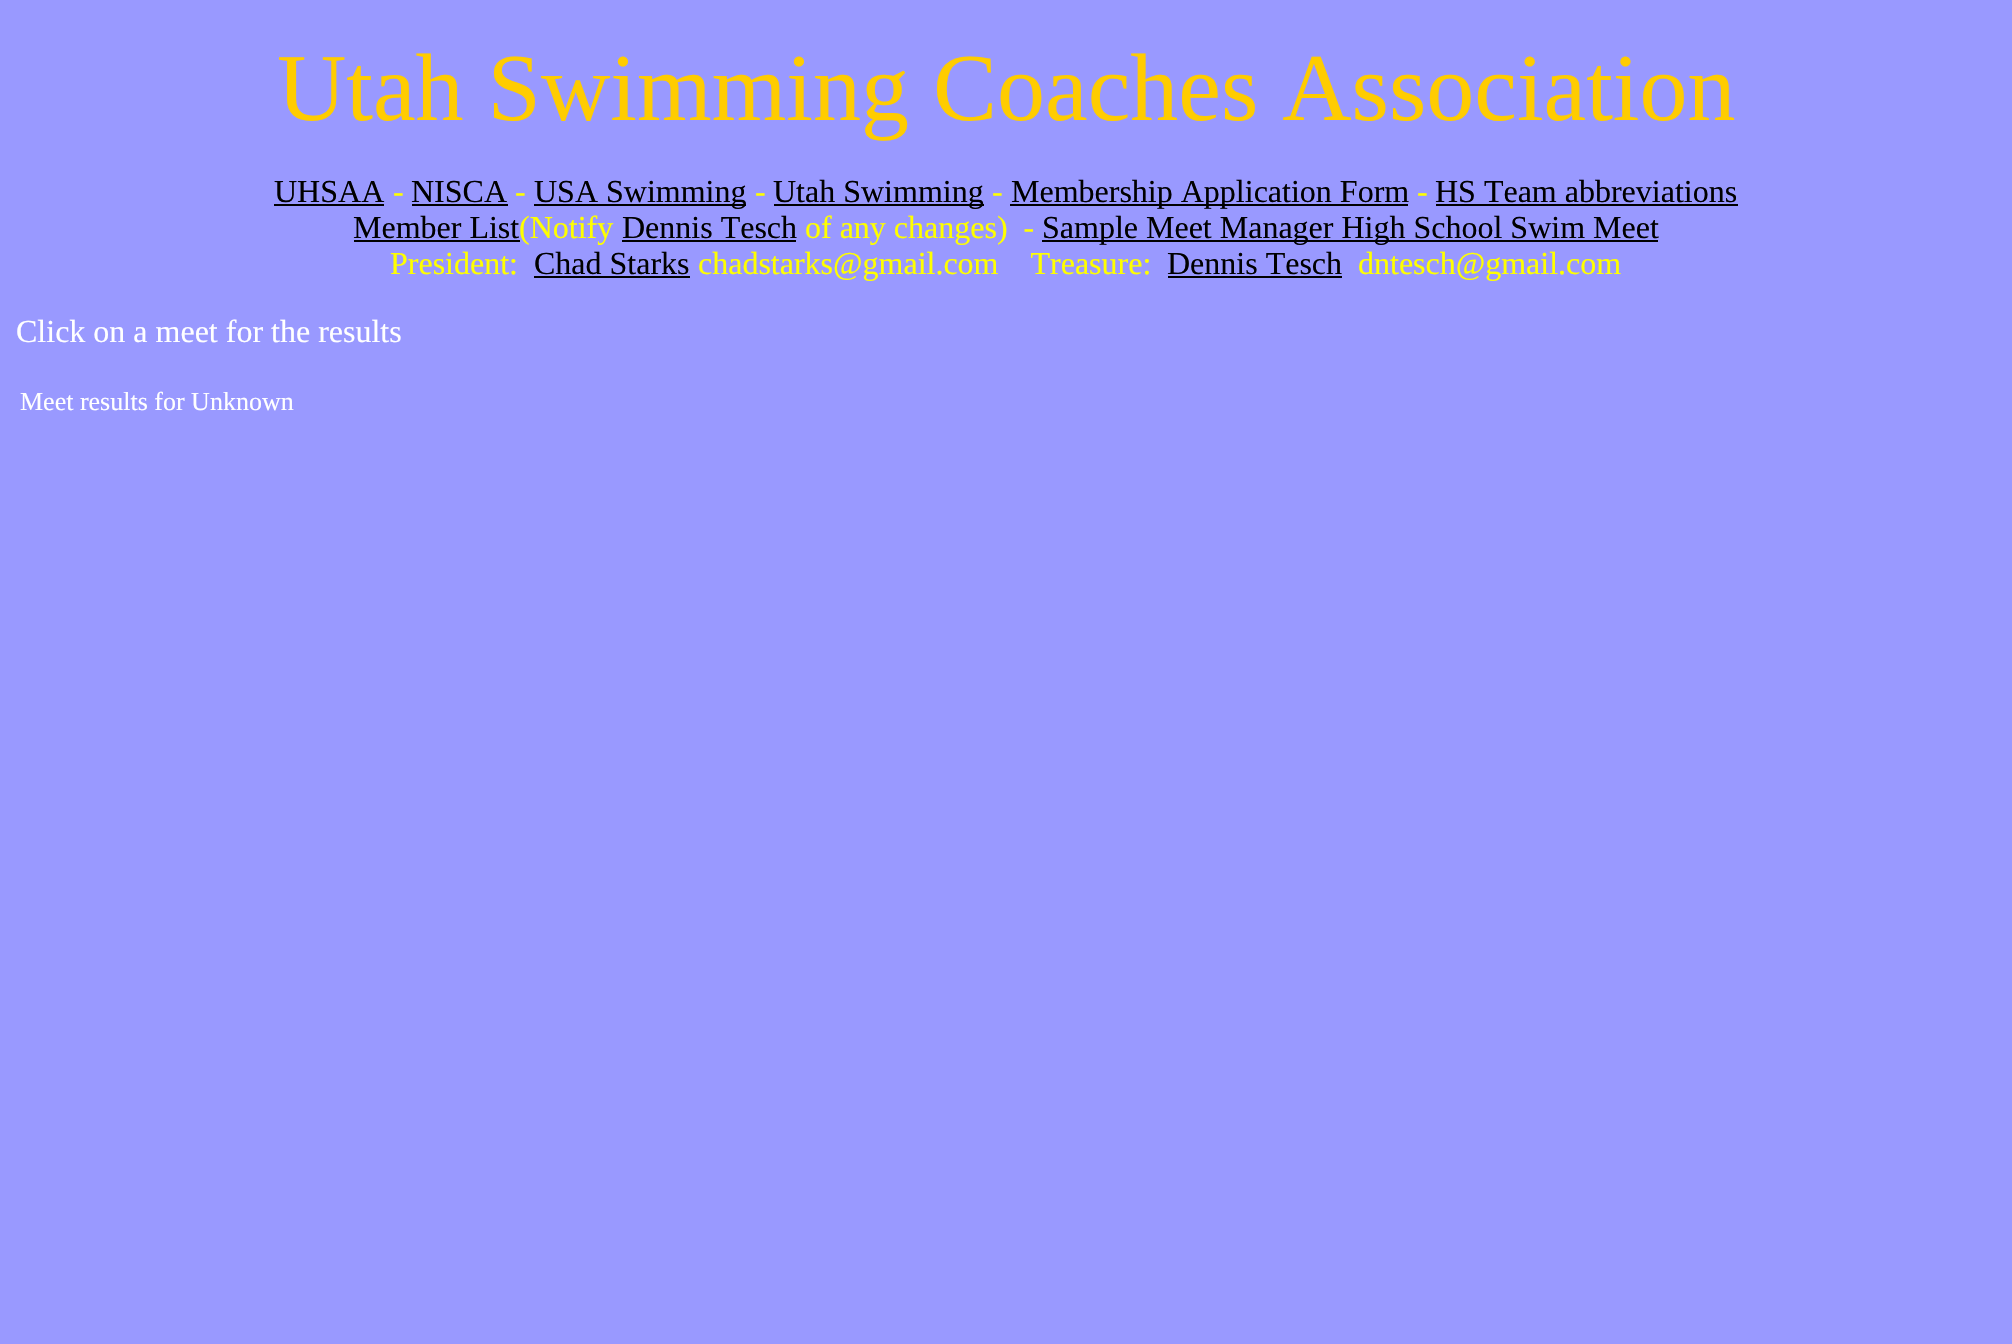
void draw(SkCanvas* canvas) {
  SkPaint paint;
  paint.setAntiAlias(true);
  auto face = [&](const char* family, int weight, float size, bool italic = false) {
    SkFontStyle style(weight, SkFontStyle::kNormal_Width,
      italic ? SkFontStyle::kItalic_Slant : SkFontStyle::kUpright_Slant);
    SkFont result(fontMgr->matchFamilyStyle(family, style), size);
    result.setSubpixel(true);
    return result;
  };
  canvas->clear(0xff9999ff);
  {
    const struct { float x, y, w, h; SkColor color; } items[] = {
      {274, 204, 110, 2, 0xff000000},
      {412, 204, 96, 2, 0xff000000},
      {534, 204, 212, 2, 0xff000000},
      {774, 204, 210, 2, 0xff000000},
      {1010, 204, 398, 2, 0xff000000},
      {1436, 204, 302, 2, 0xff000000},
      {354, 240, 166, 2, 0xff000000},
      {622, 240, 174, 2, 0xff000000},
      {1042, 240, 616, 2, 0xff000000},
      {534, 276, 156, 2, 0xff000000},
      {1168, 276, 174, 2, 0xff000000},
    };
    for (auto [x, y, w, h, color] : items) {
      paint.setColor(color);
      canvas->drawRect(SkRect::MakeXYWH(x, y, w, h), paint);
    }
  }
  auto f0 = face("Liberation Serif", 400, 96);
  paint.setColor(0xffffcc00);
  canvas->drawString("Utah Swimming Coaches Association", 277, 120, f0, paint);
  auto f1 = face("Liberation Serif", 400, 32);
  paint.setColor(0xff000000);
  canvas->drawString("UHSAA", 274, 202, f1, paint);
  paint.setColor(0xffffff00);
  canvas->drawString("-", 393, 202, f1, paint);
  paint.setColor(0xff000000);
  canvas->drawString("NISCA", 411, 202, f1, paint);
  paint.setColor(0xffffff00);
  canvas->drawString("-", 515, 202, f1, paint);
  paint.setColor(0xff000000);
  canvas->drawString("USA Swimming", 534, 202, f1, paint);
  paint.setColor(0xffffff00);
  canvas->drawString("-", 755, 202, f1, paint);
  paint.setColor(0xff000000);
  canvas->drawString("Utah Swimming", 773, 202, f1, paint);
  paint.setColor(0xffffff00);
  canvas->drawString("-", 992, 202, f1, paint);
  paint.setColor(0xff000000);
  canvas->drawString("Membership Application Form", 1011, 202, f1, paint);
  paint.setColor(0xffffff00);
  canvas->drawString("-", 1417, 202, f1, paint);
  paint.setColor(0xff000000);
  canvas->drawString("HS Team abbreviations", 1435, 202, f1, paint);
  canvas->drawString("Member List", 353, 238, f1, paint);
  paint.setColor(0xffffff00);
  canvas->drawString("(Notify", 519, 238, f1, paint);
  paint.setColor(0xff000000);
  canvas->drawString("Dennis Tesch", 622, 238, f1, paint);
  paint.setColor(0xffffff00);
  canvas->drawString("of any changes)  -", 805, 238, f1, paint);
  paint.setColor(0xff000000);
  canvas->drawString("Sample Meet Manager High School Swim Meet", 1042, 238, f1, paint);
  paint.setColor(0xffffff00);
  canvas->drawString("President:", 390, 274, f1, paint);
  paint.setColor(0xff000000);
  canvas->drawString("Chad Starks", 534, 274, f1, paint);
  paint.setColor(0xffffff00);
  canvas->drawString("chadstarks@gmail.com    Treasure:", 698, 274, f1, paint);
  paint.setColor(0xff000000);
  canvas->drawString("Dennis Tesch", 1167, 274, f1, paint);
  paint.setColor(0xffffff00);
  canvas->drawString("dntesch@gmail.com", 1358, 274, f1, paint);
  paint.setColor(0xffffffff);
  canvas->drawString("Click on a meet for the results", 16, 342, f1, paint);
  auto f2 = face("Liberation Serif", 400, 26);
  canvas->drawString("Meet results for Unknown", 20, 410, f2, paint);
}
